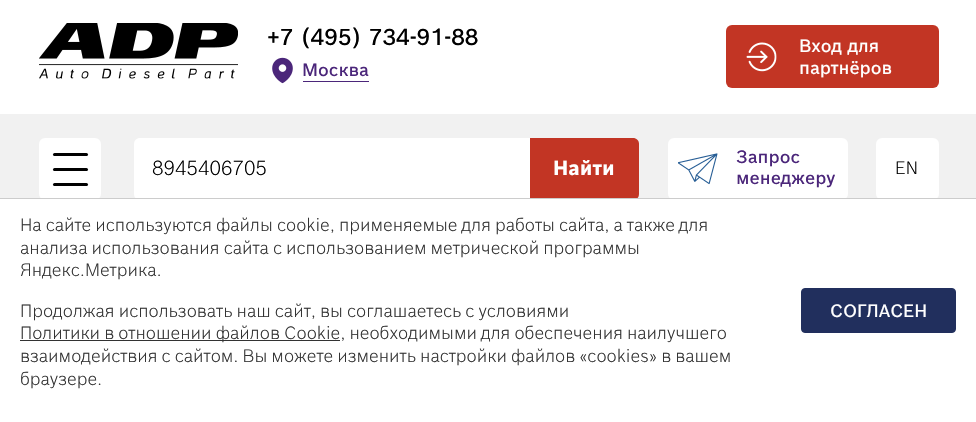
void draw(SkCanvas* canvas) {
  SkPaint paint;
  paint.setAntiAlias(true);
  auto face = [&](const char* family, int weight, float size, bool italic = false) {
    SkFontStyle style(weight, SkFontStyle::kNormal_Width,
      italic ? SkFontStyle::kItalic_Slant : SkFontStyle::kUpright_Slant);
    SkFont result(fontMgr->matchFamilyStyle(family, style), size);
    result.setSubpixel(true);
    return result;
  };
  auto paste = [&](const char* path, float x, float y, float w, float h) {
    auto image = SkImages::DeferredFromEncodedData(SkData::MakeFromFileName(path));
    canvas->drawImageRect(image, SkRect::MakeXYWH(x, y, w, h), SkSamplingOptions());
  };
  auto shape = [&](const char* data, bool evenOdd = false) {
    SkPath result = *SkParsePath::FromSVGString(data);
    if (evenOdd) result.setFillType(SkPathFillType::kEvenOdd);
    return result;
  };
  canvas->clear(0xffffffff);
  paste("img/1.png", 39, 23, 199, 56);
  paste("img/2.png", 272, 57, 21, 27);
  paint.setColor(0xff4b267a);
  canvas->drawRect(SkRect::MakeXYWH(303, 81, 66, 1), paint);
  paint.setColor(0xffc23524);
  canvas->drawRoundRect(SkRect::MakeXYWH(726, 25, 213, 63), 6, 6, paint);
  paste("img/3.png", 746, 42, 31, 30);
  paint.setColor(0xfff1f1f1);
  canvas->drawRect(SkRect::MakeXYWH(0, 114, 976, 84), paint);
  paint.setColor(0xffffffff);
  canvas->drawRoundRect(SkRect::MakeXYWH(39, 138, 62, 62), 6, 6, paint);
  paint.setColor(0xff000000);
  canvas->drawRoundRect(SkRect::MakeXYWH(53, 153, 35, 3), 1.5f, 1.5f, paint);
  canvas->drawRoundRect(SkRect::MakeXYWH(53, 168, 35, 3), 1.5f, 1.5f, paint);
  canvas->drawRoundRect(SkRect::MakeXYWH(53, 183, 35, 3), 1.5f, 1.5f, paint);
  paint.setColor(0xffffffff);
  canvas->drawPath(shape("M140 138H530V200H140C136.5 200 134 197.5 134 194V144C134 140.5 136.5 138 140 138Z"), paint);
  paint.setColor(0xffc23524);
  canvas->drawPath(shape("M530 138H633C636.5 138 639 140.5 639 144V194C639 197.5 636.5 200 633 200H530Z"), paint);
  paint.setColor(0xffffffff);
  canvas->drawRoundRect(SkRect::MakeXYWH(668, 138, 180, 62), 6, 6, paint);
  paste("img/4.png", 678, 153, 40, 32);
  canvas->drawRoundRect(SkRect::MakeXYWH(876, 138, 63, 62), 6, 6, paint);
  {
    const struct { float x, y, w, h; SkColor color; } items[] = {
      {530, 199, 107, 1, 0xffffffff},
      {0, 198, 976, 1, 0xffcccccc},
      {20, 340, 320, 1, 0xff333333},
    };
    for (auto [x, y, w, h, color] : items) {
      paint.setColor(color);
      canvas->drawRect(SkRect::MakeXYWH(x, y, w, h), paint);
    }
  }
  paint.setColor(0xff212f5d);
  canvas->drawRoundRect(SkRect::MakeXYWH(801.5f, 288.5f, 154, 44), 3.5f, 3.5f, paint);
  paint.setStroke(true);
  paint.setStrokeWidth(1);
  canvas->drawRoundRect(SkRect::MakeXYWH(801.5f, 288.5f, 154, 44), 3.5f, 3.5f, paint);
  auto f0 = face("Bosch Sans", 500, 22.5f);
  paint.setStroke(false);
  paint.setColor(0xff000000);
  canvas->drawString("+7 (495) 734-91-88", 267, 45, f0, paint);
  auto f1 = face("Bosch Sans", 500, 17.5f);
  paint.setColor(0xff4b267a);
  canvas->drawString("Москва", 302, 76, f1, paint);
  paint.setColor(0xffffffff);
  canvas->drawString("Вход для", 799, 52, f1, paint);
  canvas->drawString("партнёров", 799, 74, f1, paint);
  auto f2 = face("Bosch Sans", 300, 20);
  paint.setColor(0xff000000);
  canvas->drawString("8945406705", 152, 175, f2, paint);
  auto f3 = face("Bosch Sans", 700, 20);
  paint.setColor(0xffffffff);
  canvas->drawString("Найти", 553, 175, f3, paint);
  paint.setColor(0xff4b267a);
  canvas->drawString("Запрос", 736, 163, f1, paint);
  canvas->drawString("менеджеру", 736, 184, f1, paint);
  auto f4 = face("Bosch Sans", 300, 17.5f);
  paint.setColor(0xff000000);
  canvas->drawString("EN", 895, 174, f4, paint);
  paint.setColor(0xff333333);
  {
    const struct { const char* s; float x, y; } items[] = {
      {"На сайте используются файлы cookie, применяемые для работы сайта, а также для", 20, 231},
      {"анализа использования сайта с использованием метрической программы", 20, 254},
      {"Яндекс.Метрика.", 20, 276},
      {"Продолжая использовать наш сайт, вы соглашаетесь с условиями", 20, 317},
      {"Политики в отношении файлов Cookie, необходимыми для обеспечения наилучшего", 20, 339},
      {"взаимодействия с сайтом. Вы можете изменить настройки файлов «cookies» в вашем", 20, 362},
      {"браузере.", 20, 385},
    };
    for (auto [s, x, y] : items) {
      canvas->drawString(s, x, y, f4, paint);
    }
  }
  paint.setColor(0xffffffff);
  canvas->drawString("СОГЛАСЕН", 830, 317, f1, paint);
}
